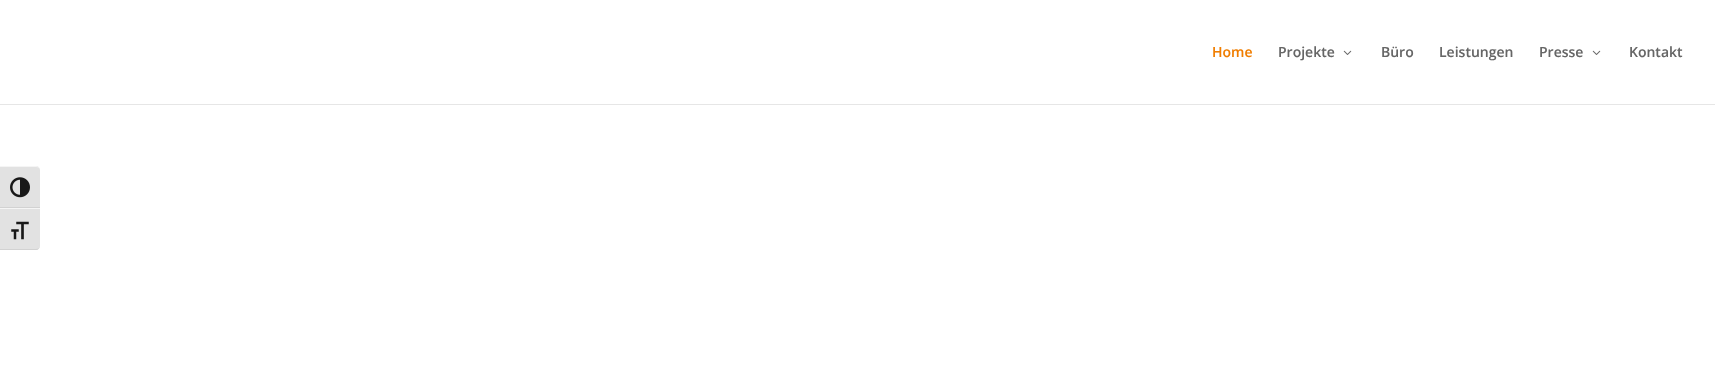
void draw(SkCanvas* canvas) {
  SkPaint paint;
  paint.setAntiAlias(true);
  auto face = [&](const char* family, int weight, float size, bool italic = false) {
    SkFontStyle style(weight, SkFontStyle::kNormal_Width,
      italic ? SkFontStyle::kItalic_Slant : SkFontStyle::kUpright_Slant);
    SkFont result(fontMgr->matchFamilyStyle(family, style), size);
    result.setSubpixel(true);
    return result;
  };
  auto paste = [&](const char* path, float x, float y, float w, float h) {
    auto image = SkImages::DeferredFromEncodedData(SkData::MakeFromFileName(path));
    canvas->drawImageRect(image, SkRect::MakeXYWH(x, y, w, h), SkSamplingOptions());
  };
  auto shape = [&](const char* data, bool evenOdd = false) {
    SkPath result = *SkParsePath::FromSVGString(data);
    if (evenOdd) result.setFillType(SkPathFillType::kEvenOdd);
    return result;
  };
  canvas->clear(0xffffffff);
  paint.setColor(0xffe6e6e6);
  canvas->drawRect(SkRect::MakeXYWH(0, 104, 1715, 1), paint);
  paste("img/1.png", 1343, 50, 9, 5);
  paste("img/1.png", 1592, 50, 9, 5);
  paint.setColor(0xffe2e2e2);
  canvas->drawPath(shape("M0 166H36C38 166 40 168 40 170V208H0Z"), paint);
  paint.setColor(0xfff5f5f5);
  canvas->drawPath(shape("M0 166V167H36C38 167 40 168 40 170C40 168 38 166 36 166Z"), paint);
  paint.setColor(0xffd2d2d2);
  canvas->drawRect(SkRect::MakeXYWH(0, 207, 40, 1), paint);
  paste("img/2.png", 10, 177, 20, 21);
  paint.setColor(0xffe2e2e2);
  canvas->drawPath(shape("M0 208H40V246C40 248 38 250 36 250H0Z"), paint);
  paint.setColor(0xfff5f5f5);
  canvas->drawRect(SkRect::MakeXYWH(0, 208, 40, 1), paint);
  paint.setColor(0xffd2d2d2);
  canvas->drawPath(shape("M0 249V250H36C38 250 40 248 40 246C40 248 38 249 36 249Z"), paint);
  paste("img/3.png", 11, 221, 18, 19);
  auto f0 = face("Open Sans", 600, 14);
  paint.setColor(0xfff07d00);
  canvas->drawString("Home", 1212, 57, f0, paint);
  paint.setColor(0xff666666);
  {
    const struct { const char* s; float x, y; } items[] = {
      {"Projekte", 1278, 57},
      {"Büro", 1381, 57},
      {"Leistungen", 1439, 57},
      {"Presse", 1539, 57},
      {"Kontakt", 1629, 57},
    };
    for (auto [s, x, y] : items) {
      canvas->drawString(s, x, y, f0, paint);
    }
  }
}
